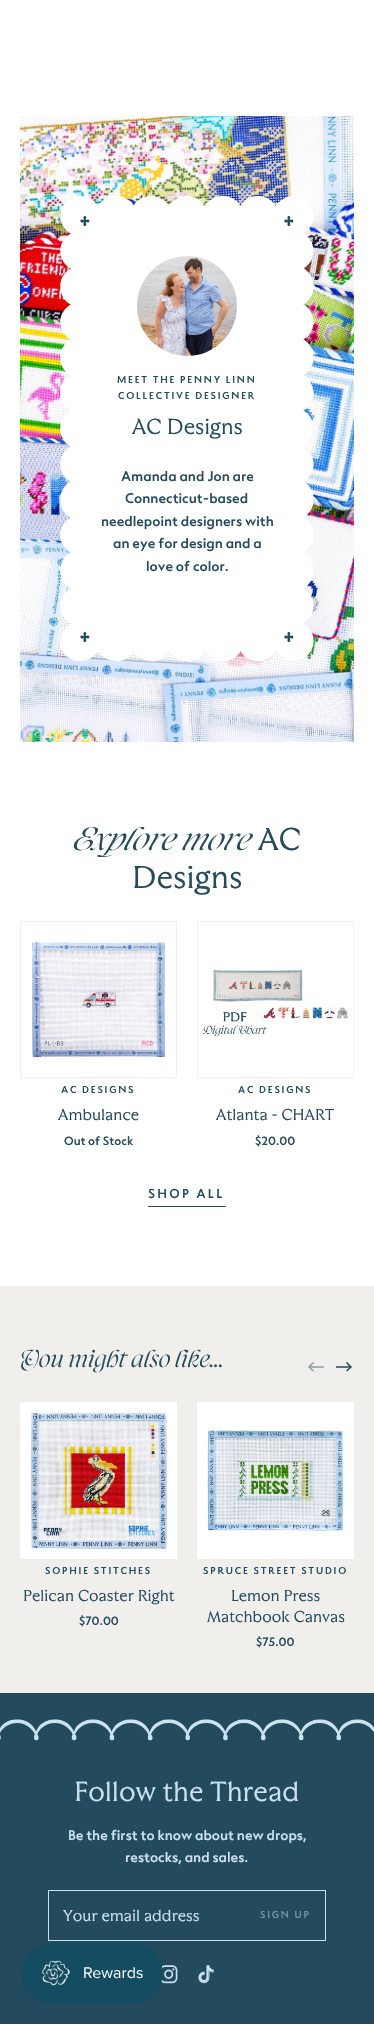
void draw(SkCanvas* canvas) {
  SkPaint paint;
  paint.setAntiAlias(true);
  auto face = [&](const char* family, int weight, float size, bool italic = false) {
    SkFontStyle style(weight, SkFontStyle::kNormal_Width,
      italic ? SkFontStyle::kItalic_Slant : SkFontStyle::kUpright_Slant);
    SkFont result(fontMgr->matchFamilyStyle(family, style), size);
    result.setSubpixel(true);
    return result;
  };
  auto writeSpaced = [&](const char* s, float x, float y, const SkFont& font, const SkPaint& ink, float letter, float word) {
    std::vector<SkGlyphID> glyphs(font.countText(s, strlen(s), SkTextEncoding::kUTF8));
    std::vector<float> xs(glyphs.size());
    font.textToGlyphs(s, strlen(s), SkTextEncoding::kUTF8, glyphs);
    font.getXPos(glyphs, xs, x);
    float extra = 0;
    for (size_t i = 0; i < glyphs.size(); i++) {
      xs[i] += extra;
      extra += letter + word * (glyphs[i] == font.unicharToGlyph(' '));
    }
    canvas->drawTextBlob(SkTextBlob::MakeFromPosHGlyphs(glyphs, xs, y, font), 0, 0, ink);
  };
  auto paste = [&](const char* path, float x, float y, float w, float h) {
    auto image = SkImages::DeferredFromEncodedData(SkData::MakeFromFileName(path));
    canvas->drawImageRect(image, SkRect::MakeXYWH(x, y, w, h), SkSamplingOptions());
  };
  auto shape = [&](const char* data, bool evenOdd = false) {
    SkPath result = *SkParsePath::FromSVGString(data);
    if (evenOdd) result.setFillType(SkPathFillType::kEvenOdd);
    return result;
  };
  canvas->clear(0xffffffff);
  paste("img/1.png", 20, 116, 334, 626);
  paste("img/2.png", 60, 196, 254, 466);
  paste("img/4.png", 137, 256, 100, 100);
  paint.setStroke(true);
  paint.setStrokeWidth(1);
  paint.setColor(0xfff2f0ed);
  canvas->drawRect(SkRect::MakeXYWH(20.5f, 921.5f, 156, 156), paint);
  paste("img/5.png", 31, 941, 135, 117);
  canvas->drawRect(SkRect::MakeXYWH(197.5f, 921.5f, 156, 156), paint);
  paste("img/6.png", 202, 969, 146, 68);
  paint.setStroke(false);
  {
    const struct { float x, y, w, h; SkColor color; } items[] = {
      {148, 1206, 78, 1, 0xff234a5d},
      {0, 1286, 374, 407, 0xfff1efec},
      {309, 1366, 15, 2, 0xffa4b2b7},
    };
    for (auto [x, y, w, h, color] : items) {
      paint.setColor(color);
      canvas->drawRect(SkRect::MakeXYWH(x, y, w, h), paint);
    }
  }
  paint.setStroke(true);
  paint.setStrokeWidth(1.5f);
  paint.setColor(0xff8a9da5);
  canvas->drawPath(shape("M313.5 1371L309 1367L313.5 1362.5"), paint);
  paint.setStroke(false);
  paint.setColor(0xff577381);
  canvas->drawRect(SkRect::MakeXYWH(336, 1366, 15, 2), paint);
  paint.setStroke(true);
  paint.setColor(0xff234a5d);
  canvas->drawPath(shape("M346.5 1371L351 1367L346.5 1362.5"), paint);
  paint.setStroke(false);
  paint.setColor(0xffffffff);
  canvas->drawRect(SkRect::MakeXYWH(20, 1402, 157, 157), paint);
  paste("img/7.png", 30, 1412, 138, 137);
  canvas->drawRect(SkRect::MakeXYWH(197, 1402, 157, 157), paint);
  paste("img/8.png", 207, 1430, 137, 102);
  paint.setColor(0xff234a5d);
  canvas->drawRect(SkRect::MakeXYWH(0, 1693, 374, 331), paint);
  paste("img/9.png", 0, 1719, 374, 22);
  paint.setStroke(true);
  paint.setStrokeWidth(1);
  paint.setColor(0xffcbe2f0);
  canvas->drawRect(SkRect::MakeXYWH(48.5f, 1890.5f, 277, 50), paint);
  paste("img/10.png", 161, 1965, 17, 19);
  paste("img/11.png", 198, 1965, 16, 19);
  paste("img/12.png", 21, 1943, 142, 60);
  auto f0 = face("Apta", 500, 10);
  paint.setStroke(false);
  paint.setColor(0xff234a5d);
  writeSpaced("MEET THE PENNY LINN", 117, 383, f0, paint, 1.8f, 0);
  writeSpaced("COLLECTIVE DESIGNER", 118, 399, f0, paint, 1.8f, 0);
  auto f1 = face("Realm", 400, 22);
  canvas->drawString("AC Designs", 132, 434, f1, paint);
  auto f2 = face("Apta", 500, 14);
  {
    const struct { const char* s; float x, y; } items[] = {
      {"Amanda and Jon are", 121, 481},
      {"Connecticut-based", 125, 503},
      {"needlepoint designers with", 101, 526},
      {"an eye for design and a", 113, 548},
      {"love of color.", 146, 571},
    };
    for (auto [s, x, y] : items) {
      canvas->drawString(s, x, y, f2, paint);
    }
  }
  paste("img/3.png", 80, 216, 214, 426);
  auto f3 = face("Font", 400, 32, true);
  canvas->drawString("Explore more", 73, 850, f3, paint);
  auto f4 = face("Realm", 400, 32);
  canvas->drawString("AC", 258, 850, f4, paint);
  canvas->drawString("Designs", 132, 888, f4, paint);
  writeSpaced("AC DESIGNS", 61, 1093, f0, paint, 1.8f, 0);
  auto f5 = face("Realm", 400, 16);
  canvas->drawString("Ambulance", 58, 1120, f5, paint);
  auto f6 = face("Apta", 500, 12);
  canvas->drawString("Out of Stock", 64, 1145, f6, paint);
  writeSpaced("AC DESIGNS", 238, 1093, f0, paint, 1.8f, 0);
  canvas->drawString("Atlanta - CHART", 216, 1120, f5, paint);
  canvas->drawString("$20.00", 255, 1145, f6, paint);
  auto f7 = face("Apta", 500, 13);
  writeSpaced("SHOP ALL", 148, 1198, f7, paint, 2.25f, 0);
  auto f8 = face("Font", 400, 24);
  canvas->drawString("You might also like...", 20, 1367, f8, paint);
  writeSpaced("SOPHIE STITCHES", 45, 1574, f0, paint, 1.8f, 0);
  canvas->drawString("Pelican Coaster Right", 23, 1601, f5, paint);
  canvas->drawString("$70.00", 79, 1625, f6, paint);
  writeSpaced("SPRUCE STREET STUDIO", 203, 1574, f0, paint, 1.8f, 0);
  canvas->drawString("Lemon Press", 231, 1601, f5, paint);
  canvas->drawString("Matchbook Canvas", 207, 1622, f5, paint);
  canvas->drawString("$75.00", 256, 1646, f6, paint);
  auto f9 = face("Realm", 400, 28);
  paint.setColor(0xffcbe2f0);
  canvas->drawString("Follow the Thread", 74, 1801, f9, paint);
  canvas->drawString("Be the first to know about new drops,", 68, 1840, f2, paint);
  canvas->drawString("restocks, and sales.", 125, 1862, f2, paint);
  canvas->drawString("Your email address", 63, 1921, f5, paint);
  paint.setColor(0xff7796a7);
  writeSpaced("SIGN UP", 260, 1918, f0, paint, 1.8f, 0);
}
